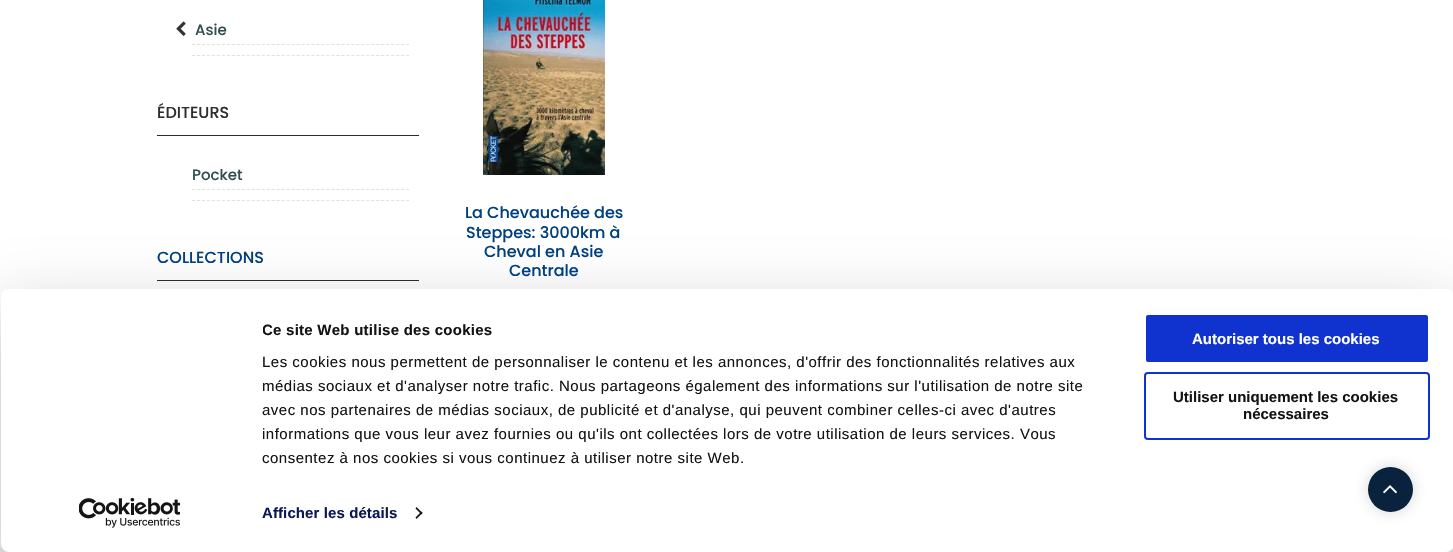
void draw(SkCanvas* canvas) {
  SkPaint paint;
  paint.setAntiAlias(true);
  auto face = [&](const char* family, int weight, float size, bool italic = false) {
    SkFontStyle style(weight, SkFontStyle::kNormal_Width,
      italic ? SkFontStyle::kItalic_Slant : SkFontStyle::kUpright_Slant);
    SkFont result(fontMgr->matchFamilyStyle(family, style), size);
    result.setSubpixel(true);
    return result;
  };
  auto writeSpaced = [&](const char* s, float x, float y, const SkFont& font, const SkPaint& ink, float letter, float word) {
    std::vector<SkGlyphID> glyphs(font.countText(s, strlen(s), SkTextEncoding::kUTF8));
    std::vector<float> xs(glyphs.size());
    font.textToGlyphs(s, strlen(s), SkTextEncoding::kUTF8, glyphs);
    font.getXPos(glyphs, xs, x);
    float extra = 0;
    for (size_t i = 0; i < glyphs.size(); i++) {
      xs[i] += extra;
      extra += letter + word * (glyphs[i] == font.unicharToGlyph(' '));
    }
    canvas->drawTextBlob(SkTextBlob::MakeFromPosHGlyphs(glyphs, xs, y, font), 0, 0, ink);
  };
  auto paste = [&](const char* path, float x, float y, float w, float h) {
    auto image = SkImages::DeferredFromEncodedData(SkData::MakeFromFileName(path));
    canvas->drawImageRect(image, SkRect::MakeXYWH(x, y, w, h), SkSamplingOptions());
  };
  auto shape = [&](const char* data, bool evenOdd = false) {
    SkPath result = *SkParsePath::FromSVGString(data);
    if (evenOdd) result.setFillType(SkPathFillType::kEvenOdd);
    return result;
  };
  canvas->clear(0xffffffff);
  paint.setStroke(true);
  paint.setStrokeWidth(1);
  paint.setColor(0xffe1e1e1);
  paint.setPathEffect(SkDashPathEffect::Make({{3, 1.98f}}, 0));
  canvas->drawPath(shape("M192 44.5H409"), paint);
  paint.setPathEffect(nullptr);
  paste("img/1.png", 176, 21, 10, 15);
  paint.setPathEffect(SkDashPathEffect::Make({{3, 1.98f}}, 0));
  canvas->drawPath(shape("M192 55.5H409"), paint);
  paint.setPathEffect(nullptr);
  paint.setStroke(false);
  paint.setColor(0xff2e2e2e);
  canvas->drawRect(SkRect::MakeXYWH(157, 135, 262, 1), paint);
  paint.setStroke(true);
  paint.setColor(0xffe1e1e1);
  paint.setPathEffect(SkDashPathEffect::Make({{3, 1.98f}}, 0));
  canvas->drawPath(shape("M192 189.5H409"), paint);
  paint.setPathEffect(nullptr);
  paint.setPathEffect(SkDashPathEffect::Make({{3, 1.98f}}, 0));
  canvas->drawPath(shape("M192 200.5H409"), paint);
  paint.setPathEffect(nullptr);
  paint.setStroke(false);
  paint.setColor(0xff2e2e2e);
  canvas->drawRect(SkRect::MakeXYWH(157, 280, 262, 1), paint);
  paste("img/2.png", 483, 0, 122, 175);
  paint.setColor(0xfff4f4f4);
  canvas->drawRect(SkRect::MakeXYWH(0, 546, 1453, 6), paint);
  paint.setColor(0x4d000000);
  paint.setMaskFilter(SkMaskFilter::MakeBlur(kNormal_SkBlurStyle, 35));
  canvas->drawRoundRect(SkRect::MakeXYWH(1, 319, 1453, 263), 8, 8, paint);
  paint.setMaskFilter(nullptr);
  paint.setColor(0xffffffff);
  canvas->drawRoundRect(SkRect::MakeXYWH(1, 289, 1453, 263), 8, 8, paint);
  paint.setColor(0xff141414);
  canvas->drawPath(shape("M416.5 507L422.5 513L421.5 514.5L415.5 508.5Z"), paint);
  canvas->drawPath(shape("M421.5 511.5L422.5 513L416.5 519L415.5 517.5Z"), paint);
  paint.setColor(0xff1032cf);
  canvas->drawRoundRect(SkRect::MakeXYWH(1145, 314, 284, 49), 3, 3, paint);
  paint.setStroke(true);
  paint.setStrokeWidth(2);
  paint.setColor(0xffffffff);
  canvas->drawRoundRect(SkRect::MakeXYWH(1145, 314, 284, 49), 3, 3, paint);
  paint.setColor(0xff1032cf);
  canvas->drawRoundRect(SkRect::MakeXYWH(1145, 373, 284, 66), 3, 3, paint);
  paste("img/3.png", 79, 498, 101, 30);
  paint.setStroke(false);
  paint.setColor(0x33323232);
  paint.setMaskFilter(SkMaskFilter::MakeBlur(kNormal_SkBlurStyle, 7.5f));
  canvas->drawRoundRect(SkRect::MakeXYWH(1368, 467, 45, 45), 22.5f, 22.5f, paint);
  paint.setMaskFilter(nullptr);
  paint.setColor(0xff09223d);
  canvas->drawCircle(1390.5f, 489.5f, 22.5f, paint);
  paste("img/4.png", 1383, 485, 14, 9);
  auto f0 = face("Poppins", 500, 15);
  paint.setColor(0xff2f4f4f);
  canvas->drawString("Asie", 195, 35, f0, paint);
  auto f1 = face("Poppins", 500, 16);
  paint.setColor(0xff2e2e2e);
  canvas->drawString("ÉDITEURS", 157, 118, f1, paint);
  paint.setColor(0xff2f4f4f);
  canvas->drawString("Pocket", 192, 180, f0, paint);
  paint.setColor(0xff00407f);
  {
    const struct { const char* s; float x, y; } items[] = {
      {"COLLECTIONS", 157, 263},
      {"La Chevauchée des", 465, 218},
      {"Steppes: 3000km à", 466, 238},
      {"Cheval en Asie", 484, 257},
      {"Centrale", 509, 276},
    };
    for (auto [s, x, y] : items) {
      canvas->drawString(s, x, y, f1, paint);
    }
  }
  canvas->save();
  canvas->clipRect(SkRect::MakeXYWH(263, 319, 875, 151));
  auto f2 = face("Liberation Sans", 700, 15);
  paint.setColor(0xff141414);
  writeSpaced("Ce site Web utilise des cookies", 262, 335, f2, paint, 0.25f, 0);
  canvas->restore();
  auto f3 = face("Liberation Sans", 400, 15);
  {
    const struct { const char* s; float x, y; } items[] = {
      {"Les cookies nous permettent de personnaliser le contenu et les annonces, d'offrir des fonctionnalités relatives aux", 262, 367},
      {"médias sociaux et d'analyser notre trafic. Nous partageons également des informations sur l'utilisation de notre site", 262, 391},
      {"avec nos partenaires de médias sociaux, de publicité et d'analyse, qui peuvent combiner celles-ci avec d'autres", 262, 415},
      {"informations que vous leur avez fournies ou qu'ils ont collectées lors de votre utilisation de leurs services. Vous", 262, 439},
      {"consentez à nos cookies si vous continuez à utiliser notre site Web.", 262, 463},
    };
    for (auto [s, x, y] : items) {
      writeSpaced(s, x, y, f3, paint, 0.5f, 0);
    }
  }
  paint.setColor(0xff0a1755);
  writeSpaced("Afficher les détails", 262, 518, f2, paint, 0.1f, 0);
  paint.setColor(0xffffffff);
  canvas->drawString("Autoriser tous les cookies", 1192, 344, f2, paint);
  paint.setColor(0xff141414);
  canvas->drawString("Utiliser uniquement les cookies", 1173, 402, f2, paint);
  canvas->drawString("nécessaires", 1243, 419, f2, paint);
}
